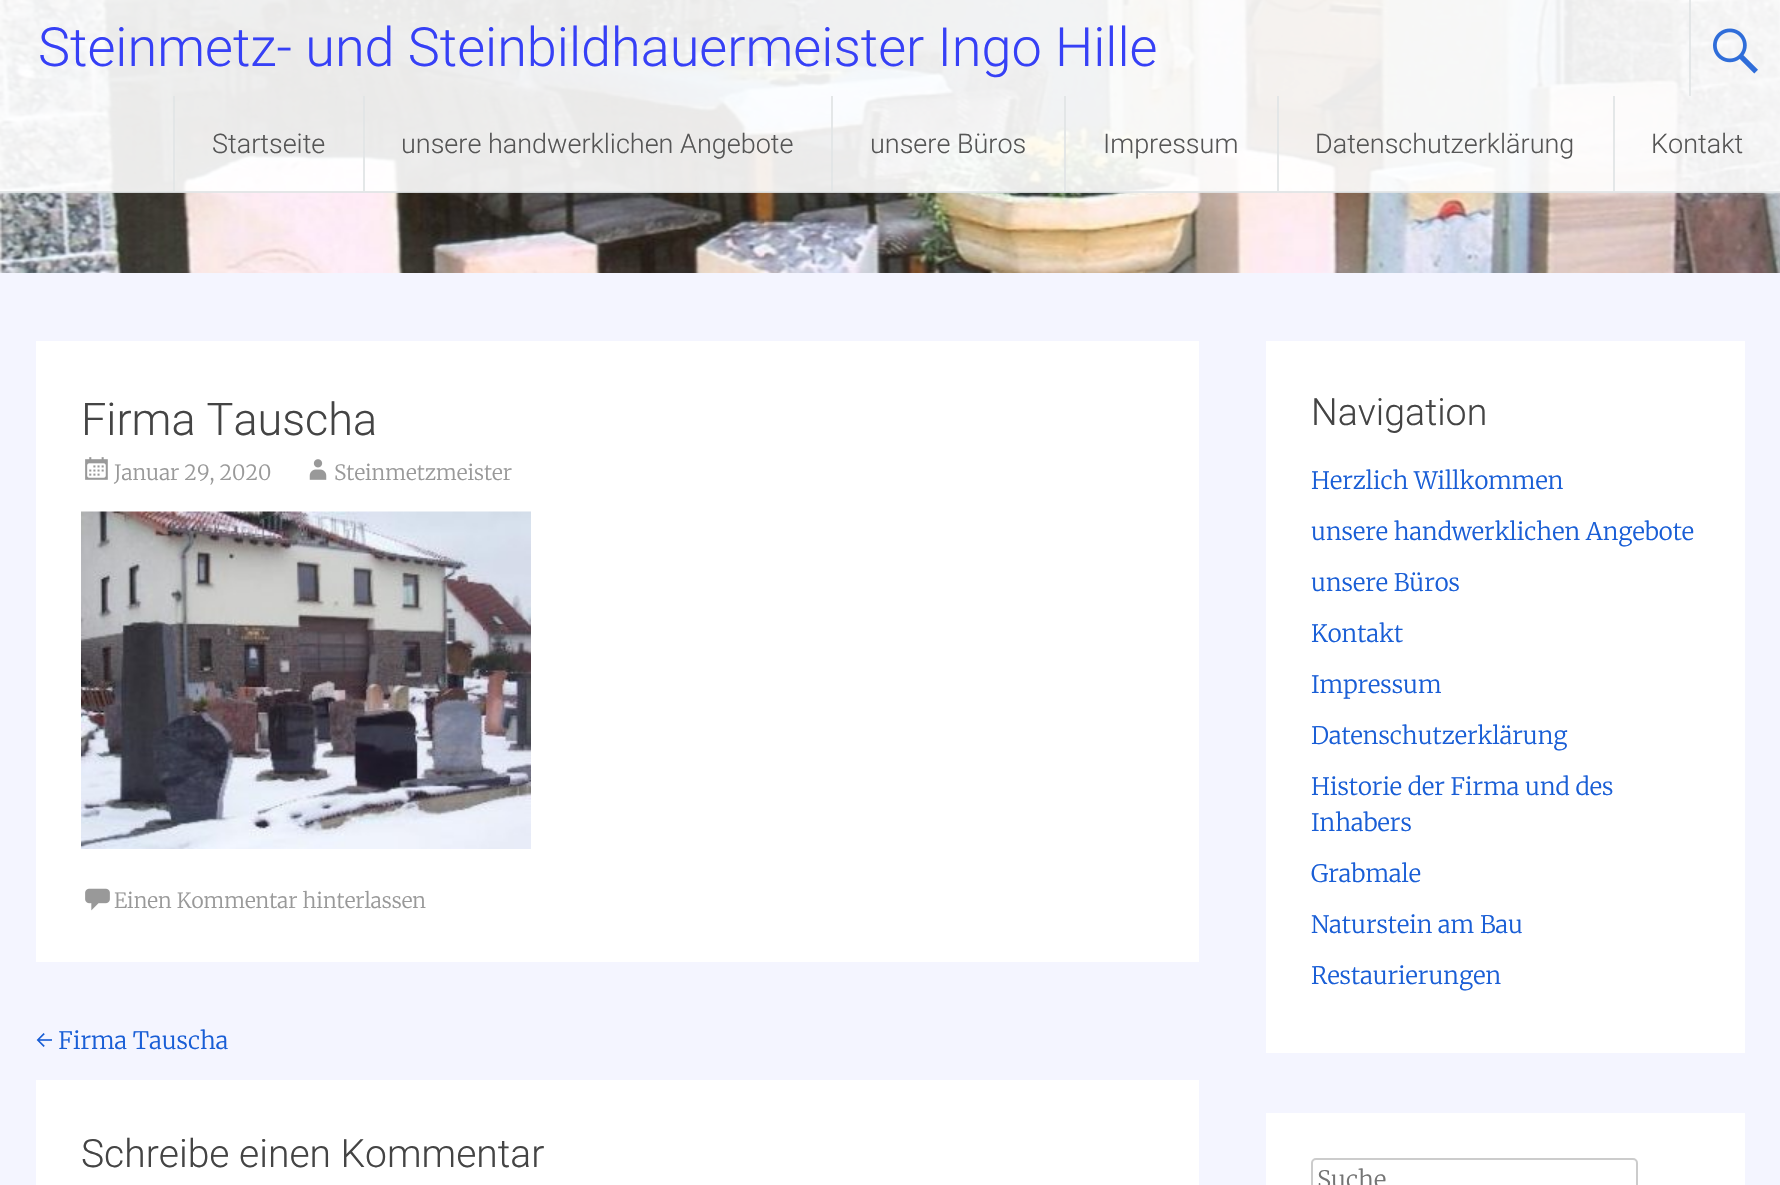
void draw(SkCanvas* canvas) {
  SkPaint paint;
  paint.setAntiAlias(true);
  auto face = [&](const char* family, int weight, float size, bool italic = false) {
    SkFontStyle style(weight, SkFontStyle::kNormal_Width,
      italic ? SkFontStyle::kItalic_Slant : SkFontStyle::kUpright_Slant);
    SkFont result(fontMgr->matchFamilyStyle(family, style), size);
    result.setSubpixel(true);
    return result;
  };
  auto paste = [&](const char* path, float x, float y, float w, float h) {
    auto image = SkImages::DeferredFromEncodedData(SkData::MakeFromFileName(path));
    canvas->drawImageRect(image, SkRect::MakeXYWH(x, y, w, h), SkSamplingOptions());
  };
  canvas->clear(0xffffffff);
  paste("img/1.png", 0, 0, 1780, 273);
  {
    const struct { float x, y, w, h; SkColor color; } items[] = {
      {0, 0, 1780, 192, 0xe6ffffff},
      {0, 191, 1780, 2, 0xe6e1e4e6},
      {1689, 0, 2, 96, 0xe6e1e4e6},
    };
    for (auto [x, y, w, h, color] : items) {
      paint.setColor(color);
      canvas->drawRect(SkRect::MakeXYWH(x, y, w, h), paint);
    }
  }
  paste("img/2.png", 1713, 28, 45, 46);
  {
    const struct { float x, y, w, h; SkColor color; } items[] = {
      {173, 96, 2, 95, 0xe6e1e4e6},
      {363, 96, 2, 95, 0xe6e1e4e6},
      {831, 96, 2, 95, 0xe6e1e4e6},
      {1064, 96, 2, 95, 0xe6e1e4e6},
      {1277, 96, 2, 95, 0xe6e1e4e6},
      {1613, 96, 2, 95, 0xe6e1e4e6},
      {0, 273, 1780, 912, 0xfff4f5ff},
      {36, 341, 1163, 621, 0xffffffff},
    };
    for (auto [x, y, w, h, color] : items) {
      paint.setColor(color);
      canvas->drawRect(SkRect::MakeXYWH(x, y, w, h), paint);
    }
  }
  paste("img/3.png", 85, 457, 23, 23);
  paste("img/4.png", 309, 459, 18, 21);
  paste("img/5.png", 81, 511, 450, 338);
  paste("img/6.png", 85, 888, 25, 23);
  {
    const struct { float x, y, w, h; SkColor color; } items[] = {
      {36, 1080, 1163, 105, 0xffffffff},
      {1266, 341, 479, 712, 0xffffffff},
      {1266, 1113, 479, 72, 0xffffffff},
    };
    for (auto [x, y, w, h, color] : items) {
      paint.setColor(color);
      canvas->drawRect(SkRect::MakeXYWH(x, y, w, h), paint);
    }
  }
  paint.setStroke(true);
  paint.setStrokeWidth(2);
  paint.setColor(0xffcccccc);
  canvas->drawRoundRect(SkRect::MakeXYWH(1312, 1159, 325, 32), 4, 4, paint);
  auto f0 = face("Roboto", 300, 54);
  paint.setStroke(false);
  paint.setColor(0xff3640f6);
  canvas->drawString("Steinmetz- und Steinbildhauermeister Ingo Hille", 38, 66, f0, paint);
  auto f1 = face("Roboto", 300, 27);
  paint.setColor(0xff555555);
  {
    const struct { const char* s; float x, y; } items[] = {
      {"Startseite", 212, 153},
      {"unsere handwerklichen Angebote", 401, 153},
      {"unsere Büros", 870, 153},
      {"Impressum", 1103, 153},
      {"Datenschutzerklärung", 1315, 153},
      {"Kontakt", 1651, 153},
    };
    for (auto [s, x, y] : items) {
      canvas->drawString(s, x, y, f1, paint);
    }
  }
  auto f2 = face("Roboto", 300, 45);
  paint.setColor(0xff444444);
  canvas->drawString("Firma Tauscha", 81, 435, f2, paint);
  auto f3 = face("Merriweather", 300, 21);
  paint.setColor(0xff999999);
  {
    const struct { const char* s; float x, y; } items[] = {
      {"Januar 29, 2020", 114, 480},
      {"Steinmetzmeister", 334, 480},
      {"Einen Kommentar hinterlassen", 114, 908},
    };
    for (auto [s, x, y] : items) {
      canvas->drawString(s, x, y, f3, paint);
    }
  }
  auto f4 = face("Merriweather", 300, 24);
  paint.setColor(0xff195ed6);
  canvas->drawString("← Firma Tauscha", 36, 1049, f4, paint);
  auto f5 = face("Roboto", 300, 39);
  paint.setColor(0xff444444);
  canvas->drawString("Schreibe einen Kommentar", 81, 1167, f5, paint);
  auto f6 = face("Roboto", 300, 37.5f);
  canvas->drawString("Navigation", 1311, 425, f6, paint);
  paint.setColor(0xff195ed6);
  {
    const struct { const char* s; float x, y; } items[] = {
      {"Herzlich Willkommen", 1311, 489},
      {"unsere handwerklichen Angebote", 1311, 540},
      {"unsere Büros", 1311, 591},
      {"Kontakt", 1311, 642},
      {"Impressum", 1311, 693},
      {"Datenschutzerklärung", 1311, 744},
      {"Historie der Firma und des", 1311, 795},
      {"Inhabers", 1311, 831},
      {"Grabmale", 1311, 882},
      {"Naturstein am Bau", 1311, 933},
      {"Restaurierungen", 1311, 984},
    };
    for (auto [s, x, y] : items) {
      canvas->drawString(s, x, y, f4, paint);
    }
  }
  paint.setColor(0xff757575);
  canvas->drawString("Suche", 1317, 1188, f4, paint);
}
